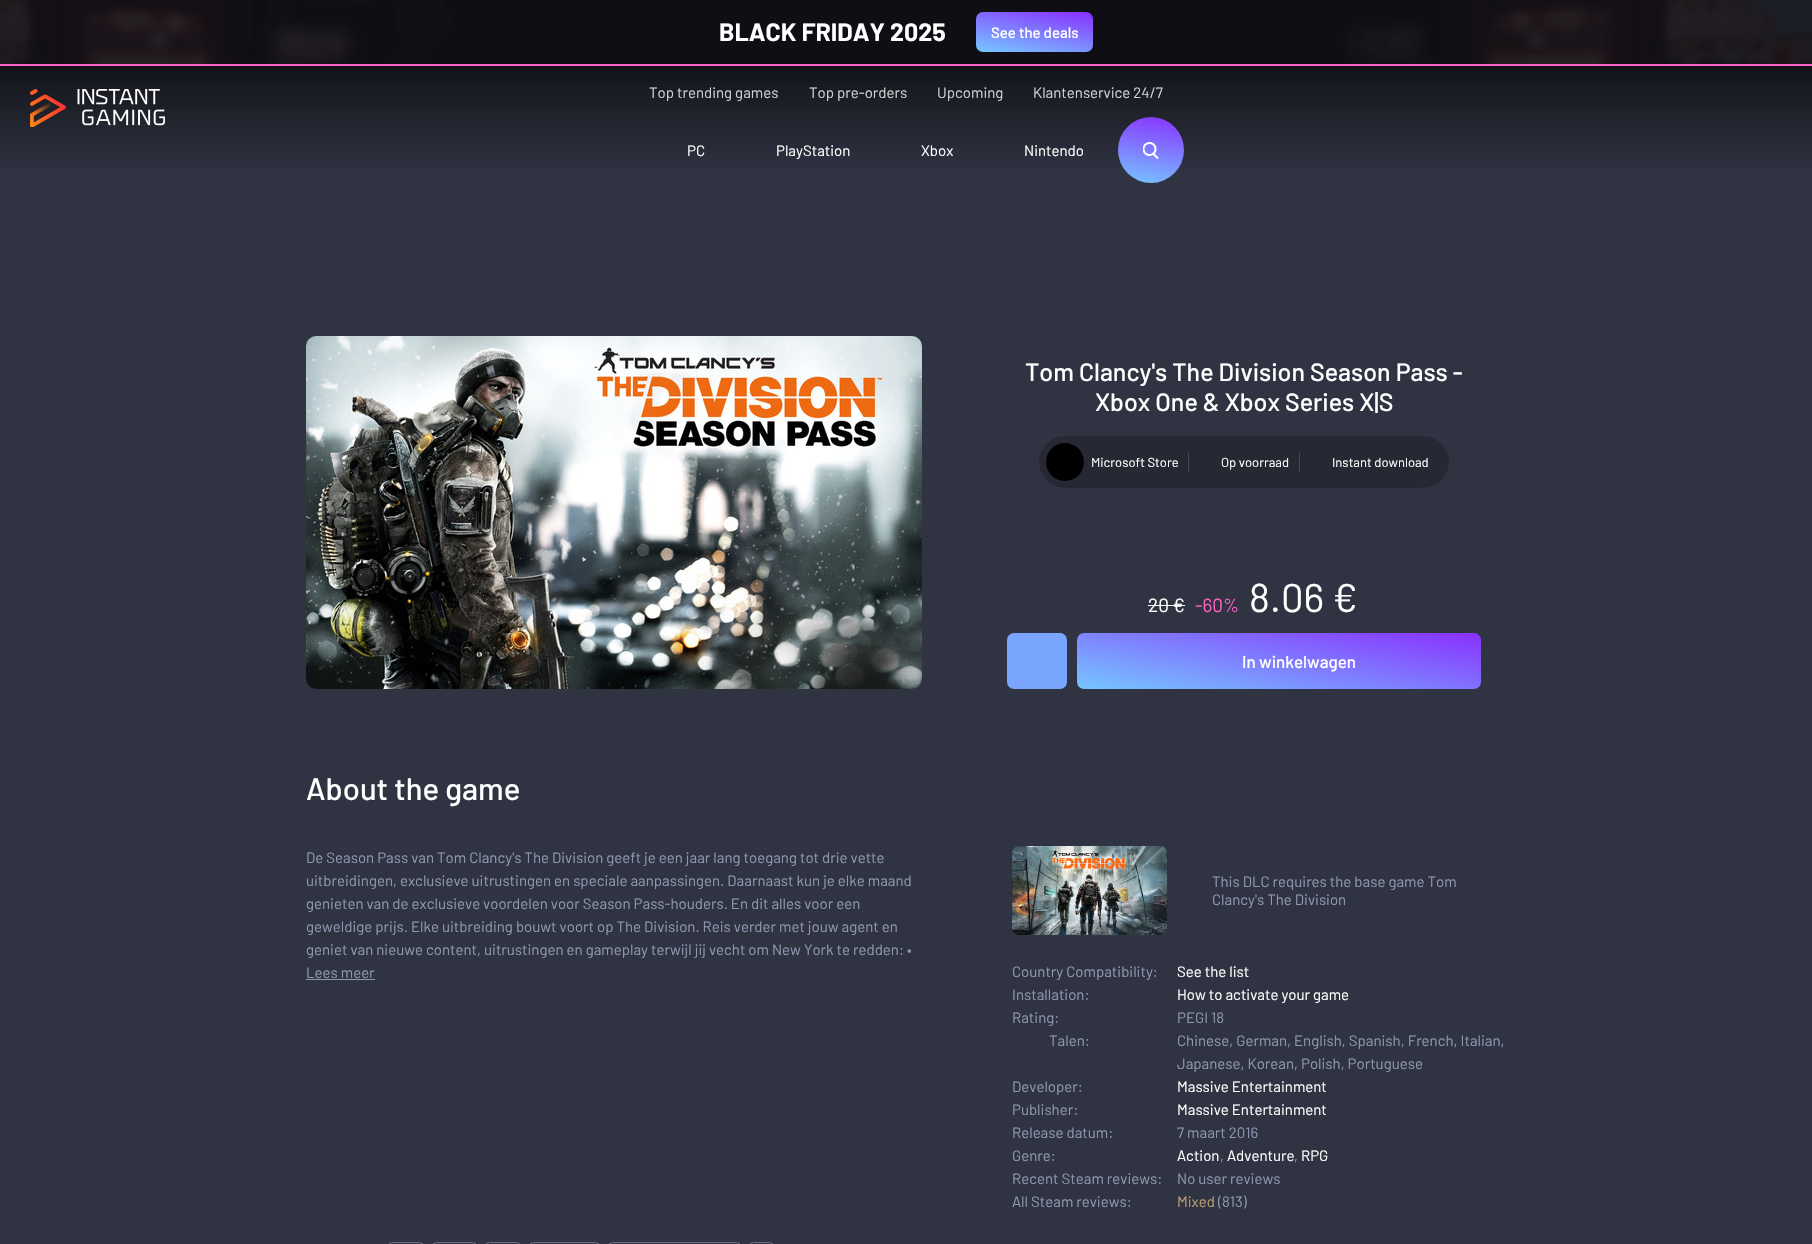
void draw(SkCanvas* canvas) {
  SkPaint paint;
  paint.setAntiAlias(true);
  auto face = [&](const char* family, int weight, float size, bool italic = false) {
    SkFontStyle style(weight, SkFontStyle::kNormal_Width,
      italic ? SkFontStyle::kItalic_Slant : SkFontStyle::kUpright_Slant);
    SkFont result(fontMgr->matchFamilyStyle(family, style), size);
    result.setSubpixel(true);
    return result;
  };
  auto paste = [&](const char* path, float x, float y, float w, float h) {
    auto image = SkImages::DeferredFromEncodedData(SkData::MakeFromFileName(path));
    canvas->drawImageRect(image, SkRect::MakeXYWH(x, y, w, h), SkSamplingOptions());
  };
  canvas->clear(0xff303342);
  paste("img/1.png", 0, 0, 1812, 64);
  paint.setColor(0xffff63c5);
  canvas->drawRect(SkRect::MakeXYWH(0, 64, 1812, 2), paint);
  {
    const SkColor colors[] = {0xff76c6ff, 0xff8930ff};
    const float stops[] = {0, 1};
    const SkPoint ends[] = {{1029, 61}, {1040, 2.6f}};
    paint.setShader(SkGradientShader::MakeLinear(ends, colors, stops, 2, SkTileMode::kClamp));
    paint.setAlpha(255);
  }
  canvas->drawRoundRect(SkRect::MakeXYWH(976, 12, 117, 40), 7, 7, paint);
  {
    const SkColor colors[] = {0xff13141a, 0xff303342};
    const float stops[] = {0, 1};
    const SkPoint ends[] = {{906, 66}, {906, 176}};
    paint.setShader(SkGradientShader::MakeLinear(ends, colors, stops, 2, SkTileMode::kClamp));
    paint.setAlpha(255);
  }
  canvas->drawRect(SkRect::MakeXYWH(0, 66, 1812, 103), paint);
  paste("img/2.png", 30, 89, 135, 38);
  {
    const SkColor colors[] = {0xff76c6ff, 0xff8930ff};
    const float stops[] = {0, 1};
    const SkPoint ends[] = {{1144, 188}, {1157, 112}};
    paint.setShader(SkGradientShader::MakeLinear(ends, colors, stops, 2, SkTileMode::kClamp));
    paint.setAlpha(255);
  }
  canvas->drawCircle(1151, 150, 33, paint);
  paste("img/3.png", 1143, 142, 16, 17);
  paste("img/4.png", 306, 336, 616, 353);
  paint.setShader(nullptr);
  paint.setColor(0xff262833);
  canvas->drawRoundRect(SkRect::MakeXYWH(1039, 436, 410, 52), 26, 26, paint);
  paint.setColor(0xff000000);
  canvas->drawCircle(1065, 462, 19, paint);
  {
    const struct { float x, y, w, h; SkColor color; } items[] = {
      {1188, 452, 1, 20, 0xff474852},
      {1299, 452, 1, 20, 0xff474852},
      {1148, 605, 37, 1, 0xffffffff},
    };
    for (auto [x, y, w, h, color] : items) {
      paint.setColor(color);
      canvas->drawRect(SkRect::MakeXYWH(x, y, w, h), paint);
    }
  }
  paint.setColor(0xff7aa5ff);
  canvas->drawRoundRect(SkRect::MakeXYWH(1007, 633, 60, 56), 7, 7, paint);
  {
    const SkColor colors[] = {0xff76c6ff, 0xff8930ff};
    const float stops[] = {0, 1};
    const SkPoint ends[] = {{1268, 723}, {1290, 599}};
    paint.setShader(SkGradientShader::MakeLinear(ends, colors, stops, 2, SkTileMode::kClamp));
    paint.setAlpha(255);
  }
  canvas->drawRoundRect(SkRect::MakeXYWH(1077, 633, 404, 56), 7, 7, paint);
  paint.setShader(nullptr);
  paint.setColor(0xff9097af);
  canvas->drawRect(SkRect::MakeXYWH(306, 979, 69, 1), paint);
  paste("img/5.png", 1012, 846, 155, 89);
  paint.setStroke(true);
  paint.setStrokeWidth(1);
  paint.setColor(0xff6e707b);
  canvas->drawRoundRect(SkRect::MakeXYWH(388.5f, 1242.5f, 35, 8), 5.5f, 5.5f, paint);
  canvas->drawRoundRect(SkRect::MakeXYWH(432.5f, 1242.5f, 44, 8), 5.5f, 5.5f, paint);
  canvas->drawRoundRect(SkRect::MakeXYWH(485.5f, 1242.5f, 35, 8), 5.5f, 5.5f, paint);
  canvas->drawRoundRect(SkRect::MakeXYWH(529.5f, 1242.5f, 70, 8), 5.5f, 5.5f, paint);
  canvas->drawRoundRect(SkRect::MakeXYWH(608.5f, 1242.5f, 132, 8), 5.5f, 5.5f, paint);
  canvas->drawRoundRect(SkRect::MakeXYWH(749.5f, 1242.5f, 24, 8), 5.5f, 5.5f, paint);
  auto f0 = face("Barlow", 700, 25);
  paint.setStroke(false);
  paint.setColor(0xffffffff);
  canvas->drawString("BLACK FRIDAY 2025", 719, 41, f0, paint);
  auto f1 = face("Barlow", 500, 15);
  canvas->drawString("See the deals", 991, 38, f1, paint);
  auto f2 = face("Barlow", 400, 15);
  paint.setColor(0xffd1d2d3);
  {
    const struct { const char* s; float x, y; } items[] = {
      {"Top trending games", 649, 98},
      {"Top pre-orders", 809, 98},
      {"Upcoming", 937, 98},
      {"Klantenservice 24/7", 1033, 98},
    };
    for (auto [s, x, y] : items) {
      canvas->drawString(s, x, y, f2, paint);
    }
  }
  paint.setColor(0xffffffff);
  {
    const struct { const char* s; float x, y; } items[] = {
      {"PC", 687, 156},
      {"PlayStation", 776, 156},
      {"Xbox", 921, 156},
      {"Nintendo", 1024, 156},
    };
    for (auto [s, x, y] : items) {
      canvas->drawString(s, x, y, f2, paint);
    }
  }
  auto f3 = face("Barlow", 500, 25);
  canvas->drawString("Tom Clancy's The Division Season Pass -", 1025, 381, f3, paint);
  canvas->drawString("Xbox One & Xbox Series X|S", 1095, 411, f3, paint);
  auto f4 = face("Barlow", 400, 13);
  {
    const struct { const char* s; float x, y; } items[] = {
      {"Microsoft Store", 1091, 467},
      {"Op voorraad", 1221, 467},
      {"Instant download", 1332, 467},
    };
    for (auto [s, x, y] : items) {
      canvas->drawString(s, x, y, f4, paint);
    }
  }
  auto f5 = face("Barlow", 400, 19);
  canvas->drawString("20 €", 1148, 612, f5, paint);
  paint.setColor(0xffff63c5);
  canvas->drawString("-60%", 1195, 612, f5, paint);
  auto f6 = face("Barlow", 400, 40);
  paint.setColor(0xffffffff);
  canvas->drawString("8.06 €", 1249, 612, f6, paint);
  auto f7 = face("Barlow", 500, 17);
  canvas->drawString("In winkelwagen", 1242, 668, f7, paint);
  auto f8 = face("Barlow", 500, 31);
  canvas->drawString("About the game", 306, 800, f8, paint);
  paint.setColor(0xff9097af);
  {
    const struct { const char* s; float x, y; } items[] = {
      {"De Season Pass van Tom Clancy's The Division geeft je een jaar lang toegang tot drie vette", 306, 863},
      {"uitbreidingen, exclusieve uitrustingen en speciale aanpassingen. Daarnaast kun je elke maand", 306, 886},
      {"genieten van de exclusieve voordelen voor Season Pass-houders. En dit alles voor een", 306, 909},
      {"geweldige prijs. Elke uitbreiding bouwt voort op The Division. Reis verder met jouw agent en", 306, 932},
      {"geniet van nieuwe content, uitrustingen en gameplay terwijl jij vecht om New York te redden: •", 306, 955},
      {"Lees meer", 306, 978},
      {"This DLC requires the base game Tom", 1212, 887},
      {"Clancy's The Division", 1212, 905},
      {"Country Compatibility:", 1012, 977},
    };
    for (auto [s, x, y] : items) {
      canvas->drawString(s, x, y, f2, paint);
    }
  }
  paint.setColor(0xffffffff);
  canvas->drawString("See the list", 1177, 977, f2, paint);
  paint.setColor(0xff9097af);
  canvas->drawString("Installation:", 1012, 1000, f2, paint);
  paint.setColor(0xffffffff);
  canvas->drawString("How to activate your game", 1177, 1000, f2, paint);
  paint.setColor(0xff9097af);
  {
    const struct { const char* s; float x, y; } items[] = {
      {"Rating:", 1012, 1023},
      {"PEGI 18", 1177, 1023},
      {"Talen:", 1049, 1046},
      {"Chinese, German, English, Spanish, French, Italian,", 1177, 1046},
      {"Japanese, Korean, Polish, Portuguese", 1177, 1069},
      {"Developer:", 1012, 1092},
    };
    for (auto [s, x, y] : items) {
      canvas->drawString(s, x, y, f2, paint);
    }
  }
  paint.setColor(0xffffffff);
  canvas->drawString("Massive Entertainment", 1177, 1092, f2, paint);
  paint.setColor(0xff9097af);
  canvas->drawString("Publisher:", 1012, 1115, f2, paint);
  paint.setColor(0xffffffff);
  canvas->drawString("Massive Entertainment", 1177, 1115, f2, paint);
  paint.setColor(0xff9097af);
  {
    const struct { const char* s; float x, y; } items[] = {
      {"Release datum:", 1012, 1138},
      {"7 maart 2016", 1177, 1138},
      {"Genre:", 1012, 1161},
    };
    for (auto [s, x, y] : items) {
      canvas->drawString(s, x, y, f2, paint);
    }
  }
  paint.setColor(0xffffffff);
  canvas->drawString("Action", 1177, 1161, f2, paint);
  paint.setColor(0xff9097af);
  canvas->drawString(",", 1220, 1161, f2, paint);
  paint.setColor(0xffffffff);
  canvas->drawString("Adventure", 1227, 1161, f2, paint);
  paint.setColor(0xff9097af);
  canvas->drawString(",", 1294, 1161, f2, paint);
  paint.setColor(0xffffffff);
  canvas->drawString("RPG", 1301, 1161, f2, paint);
  paint.setColor(0xff9097af);
  {
    const struct { const char* s; float x, y; } items[] = {
      {"Recent Steam reviews:", 1012, 1184},
      {"No user reviews", 1177, 1184},
      {"All Steam reviews:", 1012, 1207},
    };
    for (auto [s, x, y] : items) {
      canvas->drawString(s, x, y, f2, paint);
    }
  }
  paint.setColor(0xffb9a074);
  canvas->drawString("Mixed", 1177, 1207, f2, paint);
  paint.setColor(0xff9097af);
  canvas->drawString("(813)", 1218, 1207, f2, paint);
}
